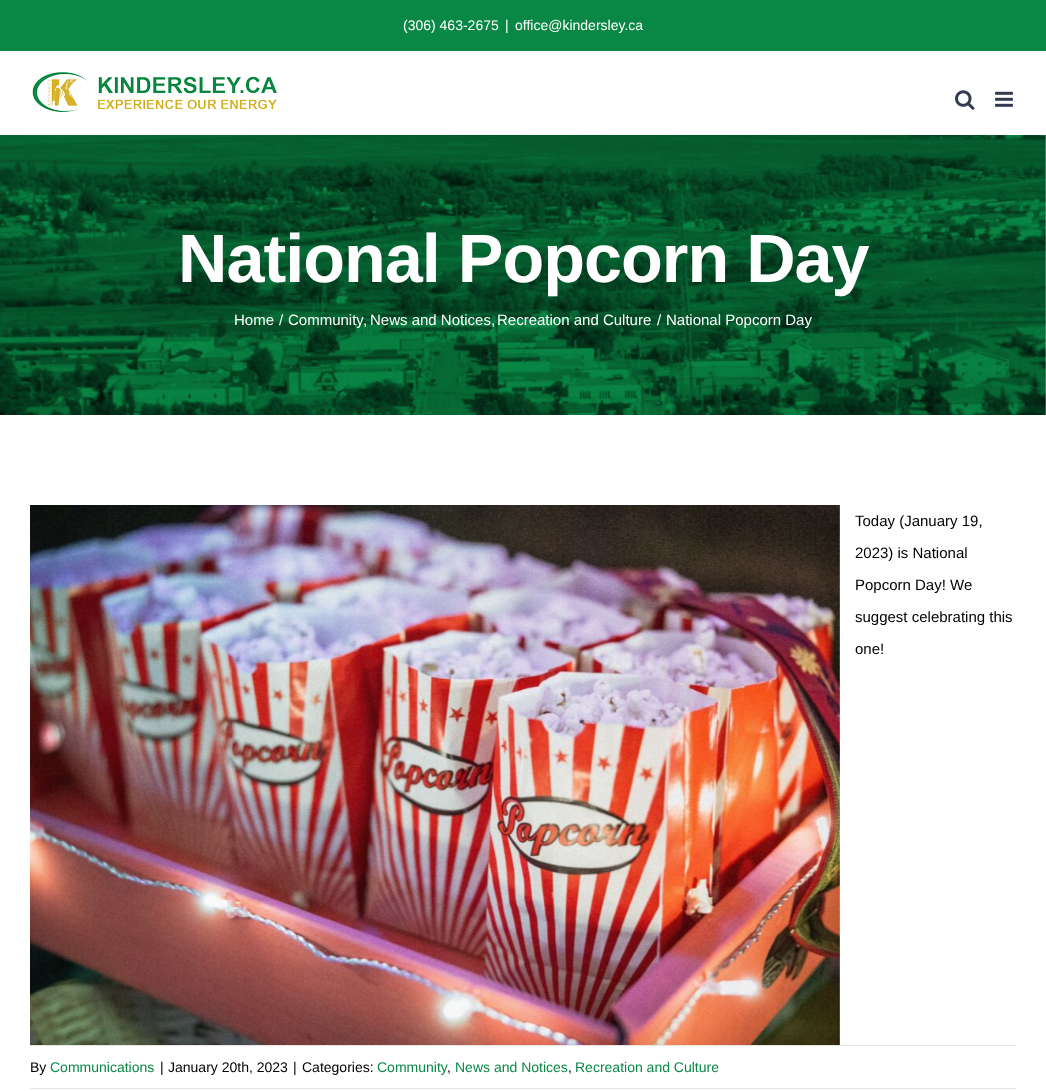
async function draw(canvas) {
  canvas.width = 1046
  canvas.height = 1091
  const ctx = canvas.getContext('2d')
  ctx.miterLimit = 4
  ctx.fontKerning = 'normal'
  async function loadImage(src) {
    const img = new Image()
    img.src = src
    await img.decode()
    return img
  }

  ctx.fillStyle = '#fff'
  ctx.fillRect(0, 0, 1046, 1091)
  ctx.fillStyle = '#098845'
  ctx.fillRect(0, 0, 1046, 51)
  ctx.font = '14px Liberation Sans'
  ctx.fillStyle = '#fff'
  ctx.fillText('(306) 463-2675', 403, 30)
  ctx.fillText('|', 505, 30)
  ctx.fillText('office@kindersley.ca', 515, 30)
  ctx.drawImage(await loadImage('image0.png'), 32, 72, 245, 40)
  ctx.drawImage(await loadImage('image1.png'), 955, 90, 20, 20)
  ctx.drawImage(await loadImage('image2.png'), 995, 91, 18, 16)
  ctx.drawImage(await loadImage('image3.png'), 0, 135, 1046, 280)
  ctx.letterSpacing = '-1px'
  ctx.font = 'bold 68.4px Liberation Sans'
  ctx.fillText('National Popcorn Day', 178, 282)
  ctx.letterSpacing = '0px'
  ctx.font = '15px Liberation Sans'
  ctx.fillText('Home', 234, 325)
  ctx.fillText('/', 279, 325)
  ctx.fillText('Community', 288, 325)
  ctx.fillText(',', 363, 325)
  ctx.fillText('News and Notices,', 370, 325)
  ctx.fillText('Recreation and Culture', 497, 325)
  ctx.fillText('/', 657, 325)
  ctx.fillText('National Popcorn Day', 666, 325)
  ctx.drawImage(await loadImage('image4.png'), 30, 505, 810, 540)
  ctx.fillStyle = '#000'
  ctx.fillText('Today (January 19,', 855, 526)
  ctx.fillText('2023) is National', 855, 558)
  ctx.fillText('Popcorn Day! We', 855, 590)
  ctx.fillText('suggest celebrating this', 855, 622)
  ctx.fillText('one!', 855, 654)
  ctx.fillStyle = '#e7e4e2'
  ctx.fillRect(30, 1045, 986, 1)
  ctx.fillRect(30, 1088, 986, 1)
  ctx.font = '14px Liberation Sans'
  ctx.fillStyle = '#000'
  ctx.fillText('By', 30, 1072)
  ctx.fillStyle = '#098845'
  ctx.fillText('Communications', 50, 1072)
  ctx.fillStyle = '#000'
  ctx.fillText('|', 160, 1072)
  ctx.fillText('January 20th, 2023', 168, 1072)
  ctx.fillText('|', 293, 1072)
  ctx.fillText('Categories:', 302, 1072)
  ctx.fillStyle = '#098845'
  ctx.fillText('Community', 377, 1072)
  ctx.fillStyle = '#000'
  ctx.fillText(',', 447, 1072)
  ctx.fillStyle = '#098845'
  ctx.fillText('News and Notices', 455, 1072)
  ctx.fillStyle = '#000'
  ctx.fillText(',', 568, 1072)
  ctx.fillStyle = '#098845'
  ctx.fillText('Recreation and Culture', 575, 1072)
}

draw(document.querySelector('canvas'))
